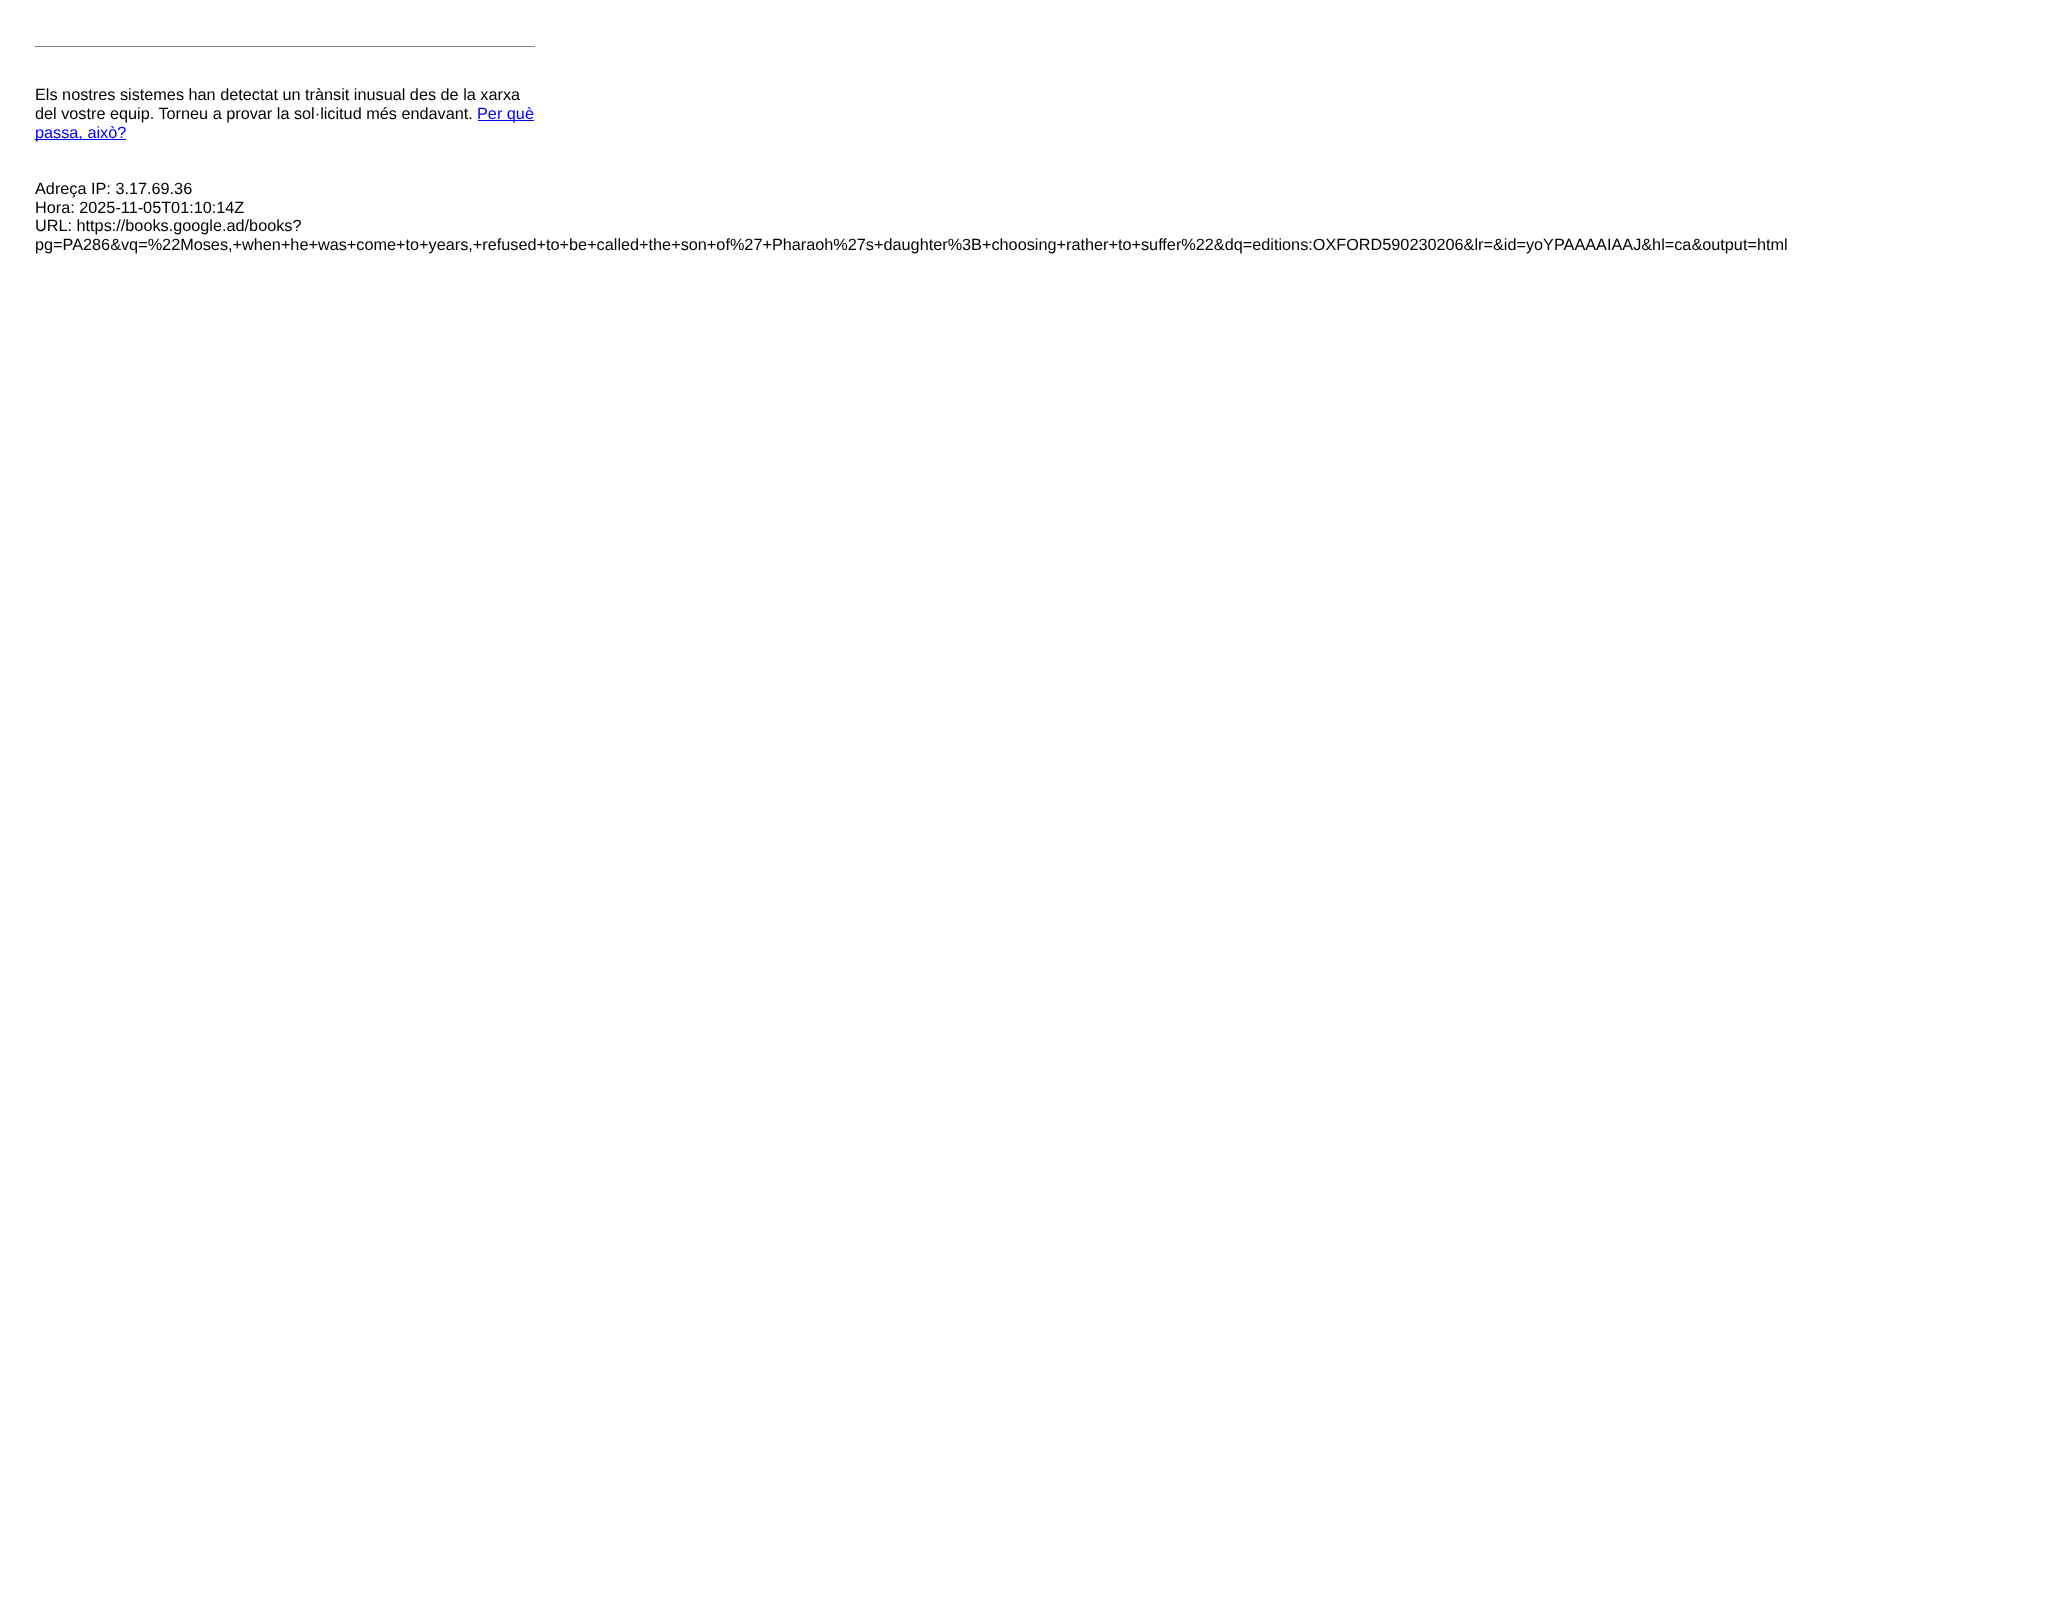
async function draw(canvas) {
  canvas.width = 2048
  canvas.height = 1624
  const ctx = canvas.getContext('2d')
  ctx.miterLimit = 4
  ctx.fontKerning = 'normal'

  ctx.fillStyle = '#fff'
  ctx.fillRect(0, 0, 2048, 1624)
  ctx.fillStyle = '#808080'
  ctx.fillRect(35, 46, 500, 1)
  ctx.font = '16.25px Liberation Sans'
  ctx.fillStyle = '#000'
  ctx.fillText('Els nostres sistemes han detectat un trànsit inusual des de la xarxa', 35, 100)
  ctx.fillText('del vostre equip. Torneu a provar la sol·licitud més endavant.', 35, 119)
  ctx.fillStyle = '#00e'
  ctx.fillRect(478, 120, 56, 1)
  ctx.fillText('Per què', 477, 119)
  ctx.fillRect(35, 139, 91, 1)
  ctx.fillText('passa, això?', 35, 138)
  ctx.fillStyle = '#000'
  ctx.fillText('Adreça IP: 3.17.69.36', 35, 194)
  ctx.fillText('Hora: 2025-11-05T01:10:14Z', 35, 213)
  ctx.fillText('URL: https://books.google.ad/books?', 35, 231)
  ctx.fillText('pg=PA286&vq=%22Moses,+when+he+was+come+to+years,+refused+to+be+called+the+son+of%27+Pharaoh%27s+daughter%3B+choosing+rather+to+suffer%22&dq=editions:OXFORD590230206&lr=&id=yoYPAAAAIAAJ&hl=ca&output=html', 35, 250)
}

draw(document.querySelector('canvas'))
